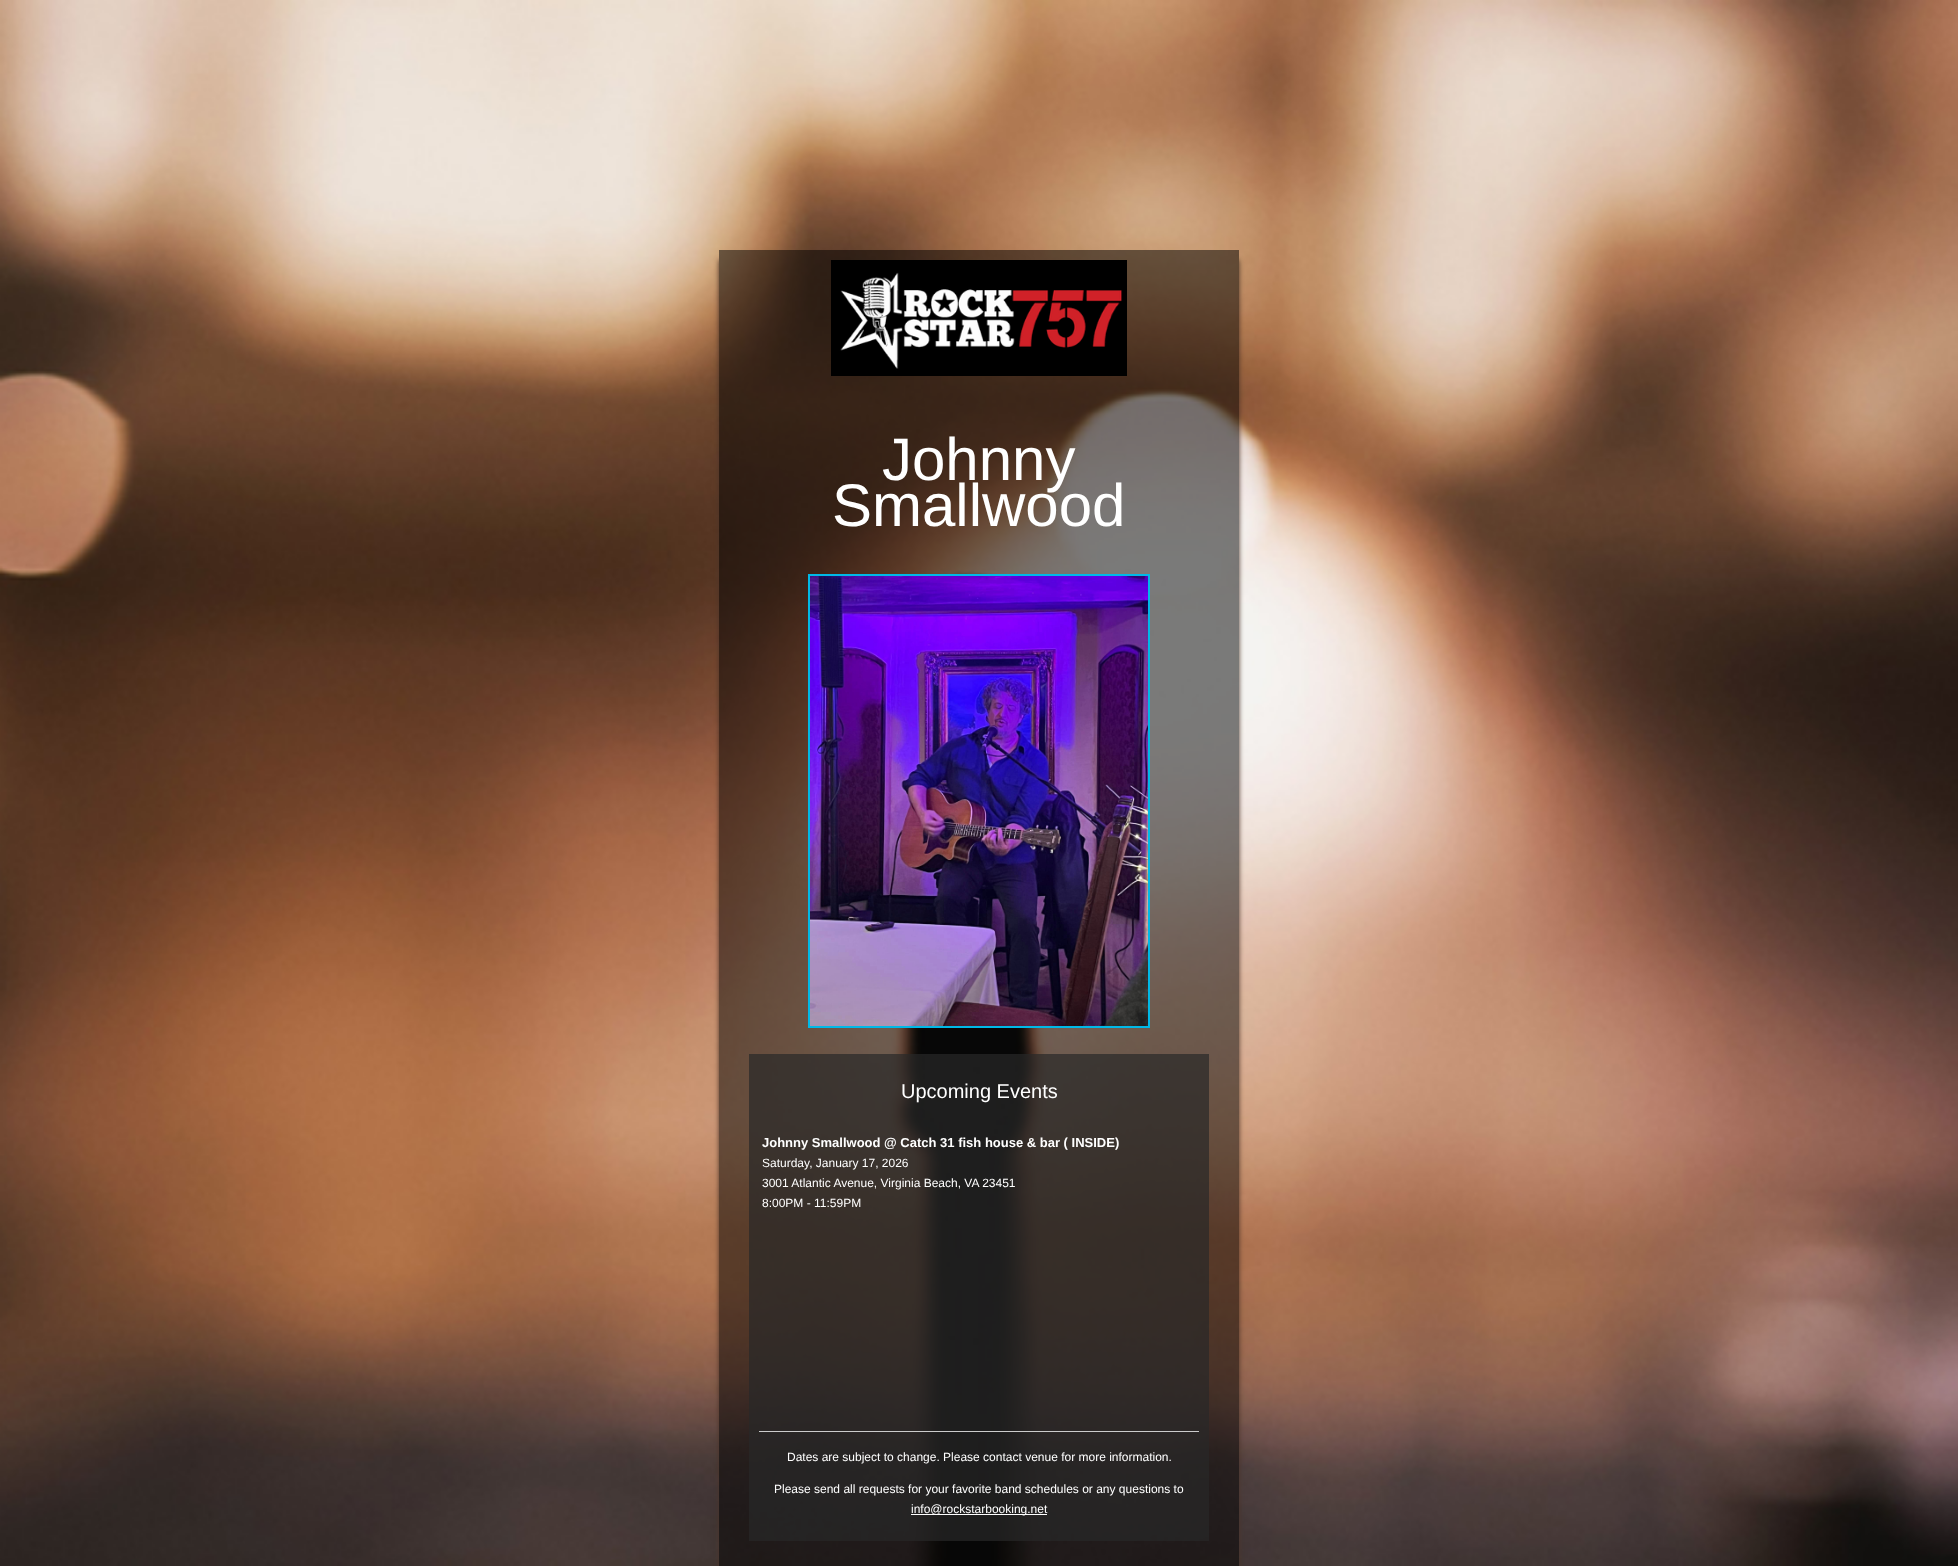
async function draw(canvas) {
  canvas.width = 1958
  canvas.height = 1566
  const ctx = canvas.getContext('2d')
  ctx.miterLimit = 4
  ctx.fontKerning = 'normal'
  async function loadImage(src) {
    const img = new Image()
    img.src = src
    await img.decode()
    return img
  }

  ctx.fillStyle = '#fff'
  ctx.fillRect(0, 0, 1958, 1566)
  ctx.drawImage(await loadImage('image0.png'), 0, 0, 1958, 1566)
  ctx.save()
  ctx.beginPath()
  ctx.moveTo(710, 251)
  ctx.lineTo(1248, 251)
  ctx.lineTo(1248, 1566)
  ctx.lineTo(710, 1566)
  ctx.closePath()
  ctx.moveTo(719, 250)
  ctx.lineTo(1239, 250)
  ctx.lineTo(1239, 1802)
  ctx.lineTo(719, 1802)
  ctx.closePath()
  ctx.clip('evenodd')
  ctx.fillStyle = '#4b3327'
  ctx.filter = 'blur(2.5px)'
  ctx.beginPath()
  ctx.rect(719, 260, 520, 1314)
  ctx.fill()
  ctx.filter = 'none'
  ctx.restore()
  ctx.fillStyle = '#00000080'
  ctx.fillRect(719, 250, 520, 1316)
  ctx.drawImage(await loadImage('image1.png'), 831, 260, 296, 116)
  ctx.font = '60px Liberation Sans'
  ctx.fillStyle = '#fff'
  ctx.fillText('Johnny', 882, 480)
  ctx.fillText('Smallwood', 832, 526)
  ctx.strokeStyle = '#00b9e7'
  ctx.lineWidth = 2
  ctx.strokeRect(809, 575, 340, 452)
  ctx.drawImage(await loadImage('image2.png'), 810, 576, 338, 450)
  ctx.fillStyle = '#282828b3'
  ctx.fillRect(749, 1054, 460, 487)
  ctx.font = '20px Liberation Sans'
  ctx.fillStyle = '#fff'
  ctx.fillText('Upcoming Events', 901, 1098)
  ctx.font = 'bold 13px Liberation Sans'
  ctx.fillText('Johnny Smallwood @ Catch 31 fish house & bar ( INSIDE)', 762, 1147)
  ctx.font = '12px Liberation Sans'
  ctx.fillText('Saturday, January 17, 2026', 762, 1167)
  ctx.fillText('3001 Atlantic Avenue, Virginia Beach, VA 23451', 762, 1187)
  ctx.fillText('8:00PM - 11:59PM', 762, 1207)
  ctx.fillStyle = '#ccc'
  ctx.fillRect(759, 1431, 440, 1)
  ctx.fillStyle = '#fff'
  ctx.fillText('Dates are subject to change. Please contact venue for more information.', 787, 1461)
  ctx.fillText('Please send all requests for your favorite band schedules or any questions to', 774, 1493)
  ctx.fillRect(911, 1514, 136, 1)
  ctx.fillText('info@rockstarbooking.net', 911, 1513)
}

draw(document.querySelector('canvas'))
